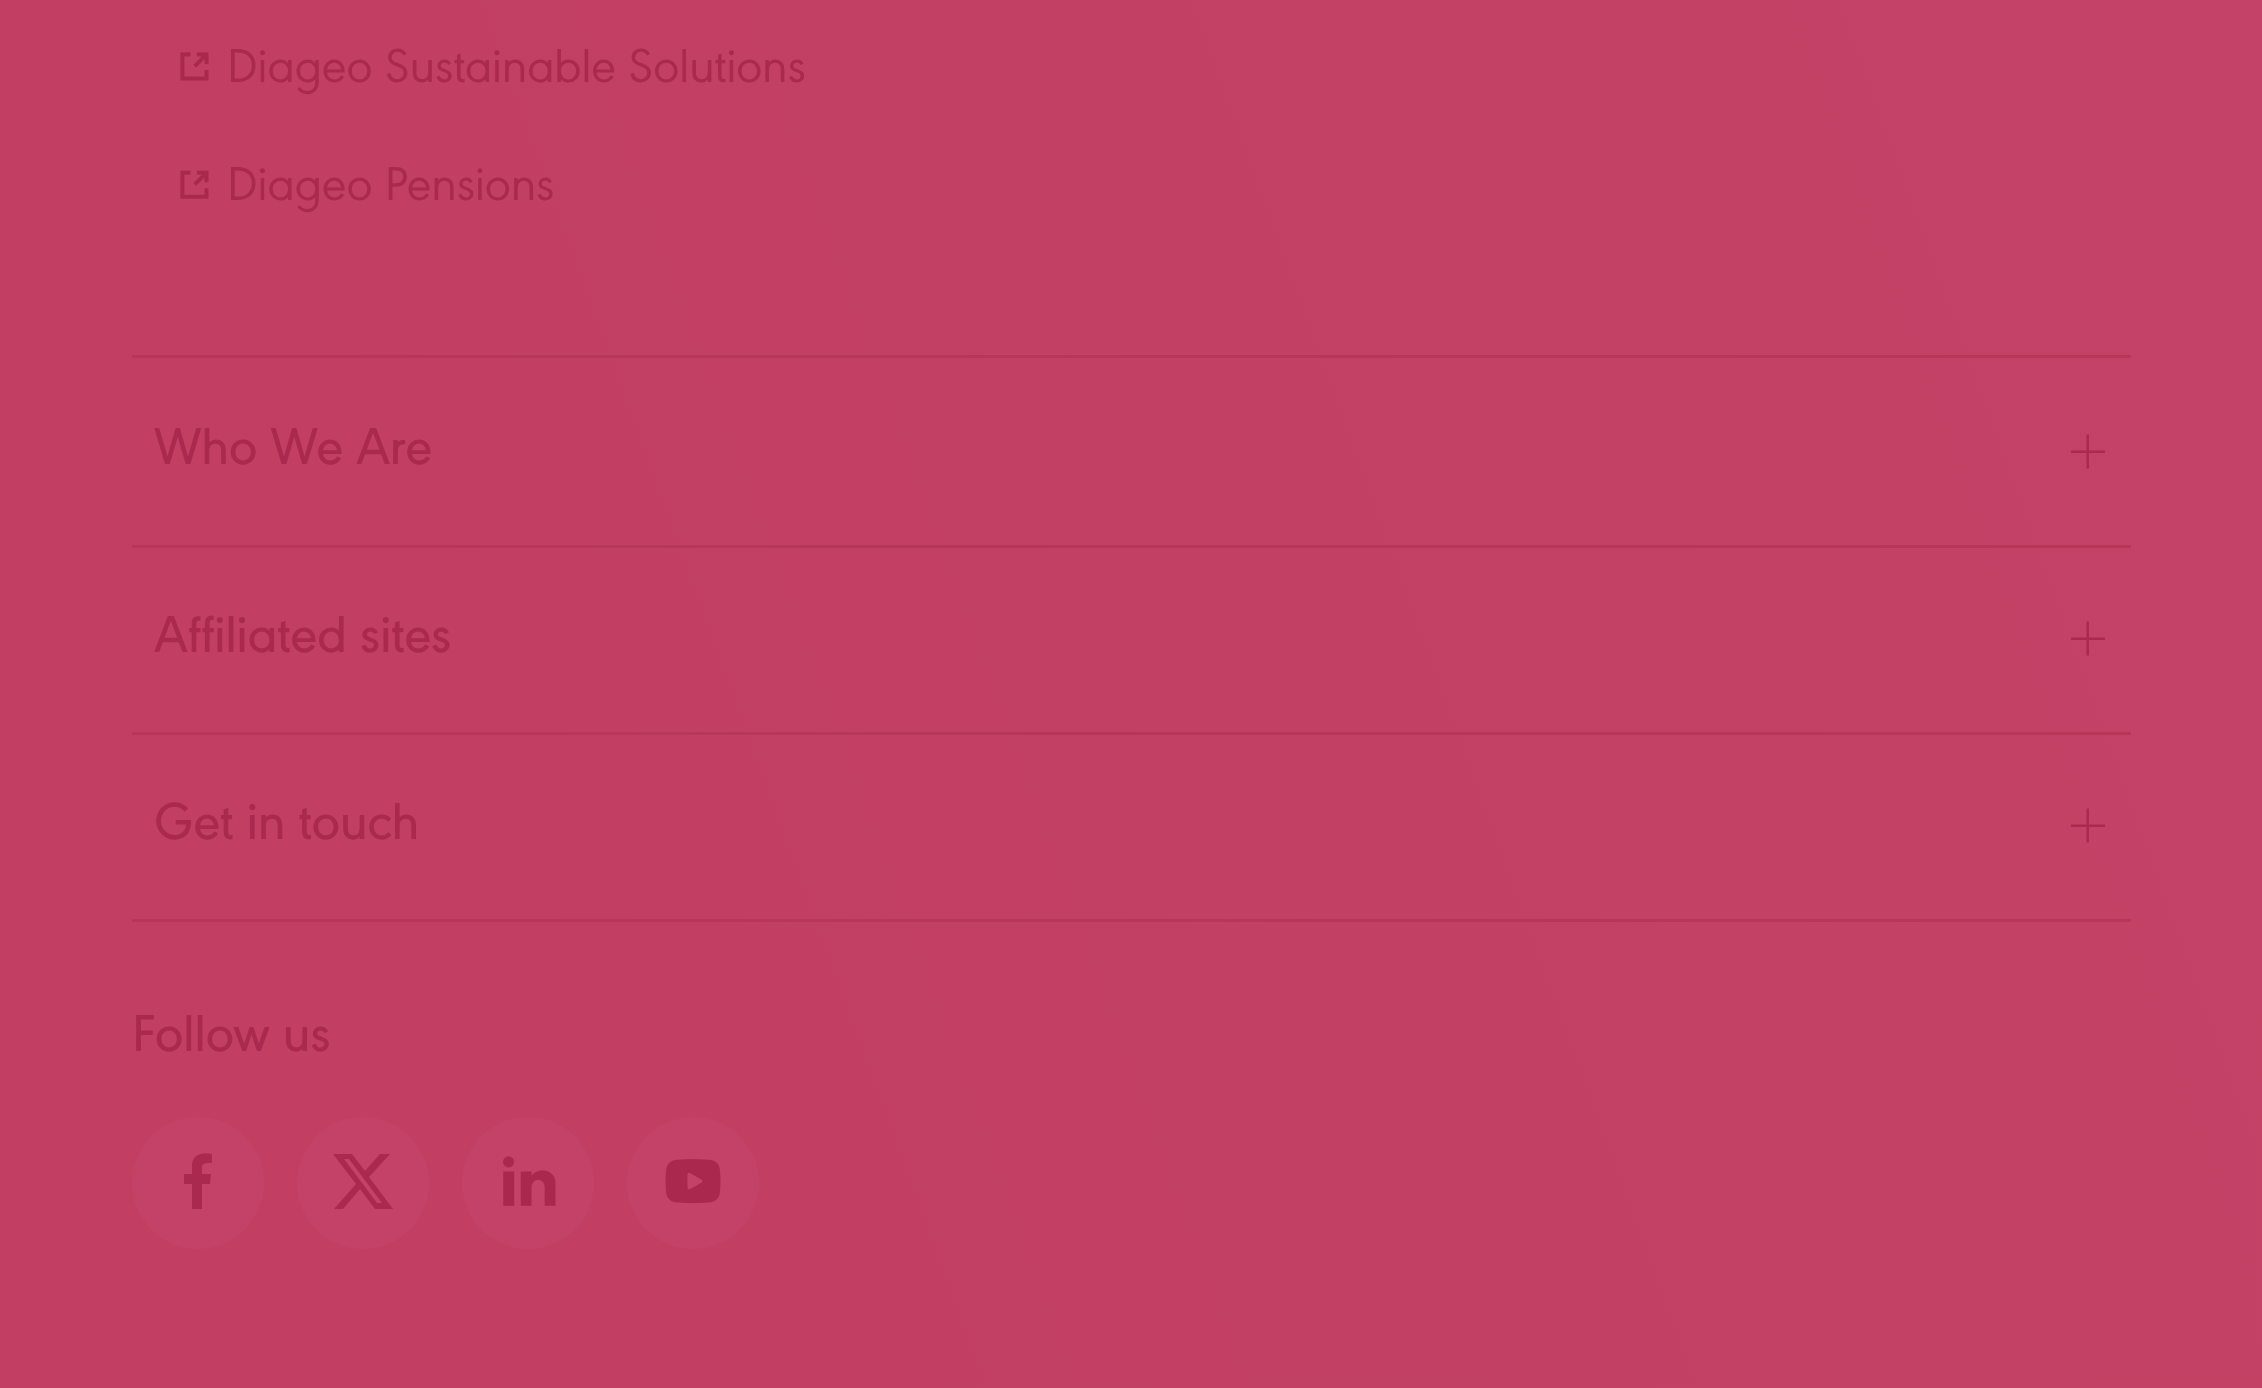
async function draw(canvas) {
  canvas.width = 2262
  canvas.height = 1388
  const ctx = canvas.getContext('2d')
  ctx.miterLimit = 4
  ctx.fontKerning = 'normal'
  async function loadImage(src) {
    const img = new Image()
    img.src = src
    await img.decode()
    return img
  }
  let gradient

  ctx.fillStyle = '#fff'
  ctx.fillRect(0, 0, 2262, 1388)
  gradient = ctx.createLinearGradient(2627, -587, -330, 489)
  gradient.addColorStop(0, '#c44268')
  gradient.addColorStop(0.44, '#c34165')
  gradient.addColorStop(0.78, '#c23f63')
  ctx.fillStyle = gradient
  ctx.fillRect(0, 0, 2262, 1388)
  ctx.drawImage(await loadImage('image0.png'), 180, 52, 29, 29)
  ctx.font = '49.5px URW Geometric'
  ctx.fillStyle = '#aa294e'
  ctx.fillText('Diageo Sustainable Solutions', 227, 82)
  ctx.drawImage(await loadImage('image1.png'), 180, 170, 29, 29)
  ctx.fillText('Diageo Pensions', 227, 200)
  ctx.fillStyle = '#b8365a'
  ctx.fillRect(132, 355, 1999, 3)
  ctx.font = '500 54px URW Geometric'
  ctx.fillStyle = '#aa294e'
  ctx.fillText('Who We Are', 154, 464)
  ctx.beginPath()
  ctx.moveTo(2071, 453)
  ctx.lineTo(2071, 450.5)
  ctx.lineTo(2105, 450.5)
  ctx.lineTo(2105, 453)
  ctx.closePath()
  ctx.moveTo(2086.5, 434.5)
  ctx.lineTo(2089, 434.5)
  ctx.lineTo(2089, 468.5)
  ctx.lineTo(2086.5, 468.5)
  ctx.closePath()
  ctx.fill()
  ctx.fillStyle = '#b8365a'
  ctx.fillRect(132, 545, 1999, 3)
  ctx.fillStyle = '#aa294e'
  ctx.fillText('Affiliated sites', 154, 652)
  ctx.beginPath()
  ctx.moveTo(2071, 640)
  ctx.lineTo(2071, 637.5)
  ctx.lineTo(2105, 637.5)
  ctx.lineTo(2105, 640)
  ctx.closePath()
  ctx.moveTo(2086.5, 621.5)
  ctx.lineTo(2089, 621.5)
  ctx.lineTo(2089, 655.5)
  ctx.lineTo(2086.5, 655.5)
  ctx.closePath()
  ctx.fill()
  ctx.fillStyle = '#b8365a'
  ctx.fillRect(132, 732, 1999, 3)
  ctx.fillRect(132, 919, 1999, 3)
  ctx.fillStyle = '#aa294e'
  ctx.fillText('Get in touch', 154, 839)
  ctx.beginPath()
  ctx.moveTo(2071, 827)
  ctx.lineTo(2071, 824.5)
  ctx.lineTo(2105, 824.5)
  ctx.lineTo(2105, 827)
  ctx.closePath()
  ctx.moveTo(2086.5, 808.5)
  ctx.lineTo(2089, 808.5)
  ctx.lineTo(2089, 842.5)
  ctx.lineTo(2086.5, 842.5)
  ctx.closePath()
  ctx.fill()
  ctx.fillText('Follow us', 132, 1051)
  ctx.fillStyle = '#c44268'
  ctx.beginPath()
  ctx.arc(198, 1183, 66, 0, 2 * Math.PI)
  ctx.fill()
  ctx.fillStyle = '#aa294e'
  ctx.beginPath()
  ctx.moveTo(192, 1209)
  ctx.lineTo(192, 1184)
  ctx.lineTo(184, 1184)
  ctx.lineTo(184, 1174)
  ctx.lineTo(192, 1174)
  ctx.lineTo(192, 1164)
  ctx.bezierCurveTo(194, 1153, 203, 1153, 212, 1154)
  ctx.lineTo(212, 1163)
  ctx.bezierCurveTo(201, 1163, 202, 1164, 202, 1174)
  ctx.lineTo(211, 1174)
  ctx.lineTo(210, 1184)
  ctx.lineTo(202, 1184)
  ctx.lineTo(202, 1209)
  ctx.closePath()
  ctx.fill()
  ctx.fillStyle = '#c44268'
  ctx.beginPath()
  ctx.arc(363, 1183, 66, 0, 2 * Math.PI)
  ctx.fill()
  ctx.fillStyle = '#aa294e'
  ctx.beginPath()
  ctx.moveTo(380, 1154)
  ctx.lineTo(390, 1154)
  ctx.lineTo(369, 1177)
  ctx.lineTo(393, 1209)
  ctx.lineTo(375, 1209)
  ctx.lineTo(360, 1189)
  ctx.lineTo(343, 1209)
  ctx.lineTo(334, 1209)
  ctx.lineTo(356, 1184)
  ctx.lineTo(333, 1154)
  ctx.lineTo(352, 1154)
  ctx.lineTo(365, 1171)
  ctx.closePath()
  ctx.moveTo(377, 1203)
  ctx.lineTo(382, 1203)
  ctx.lineTo(349, 1159)
  ctx.lineTo(344, 1159)
  ctx.closePath()
  ctx.fill()
  ctx.fillStyle = '#c44268'
  ctx.beginPath()
  ctx.arc(528, 1183, 66, 0, 2 * Math.PI)
  ctx.fill()
  ctx.drawImage(await loadImage('image2.png'), 503, 1156, 53, 50)
  ctx.beginPath()
  ctx.arc(693, 1183, 66, 0, 2 * Math.PI)
  ctx.fill()
  ctx.drawImage(await loadImage('image3.png'), 665, 1159, 56, 45)
}

draw(document.querySelector('canvas'))
